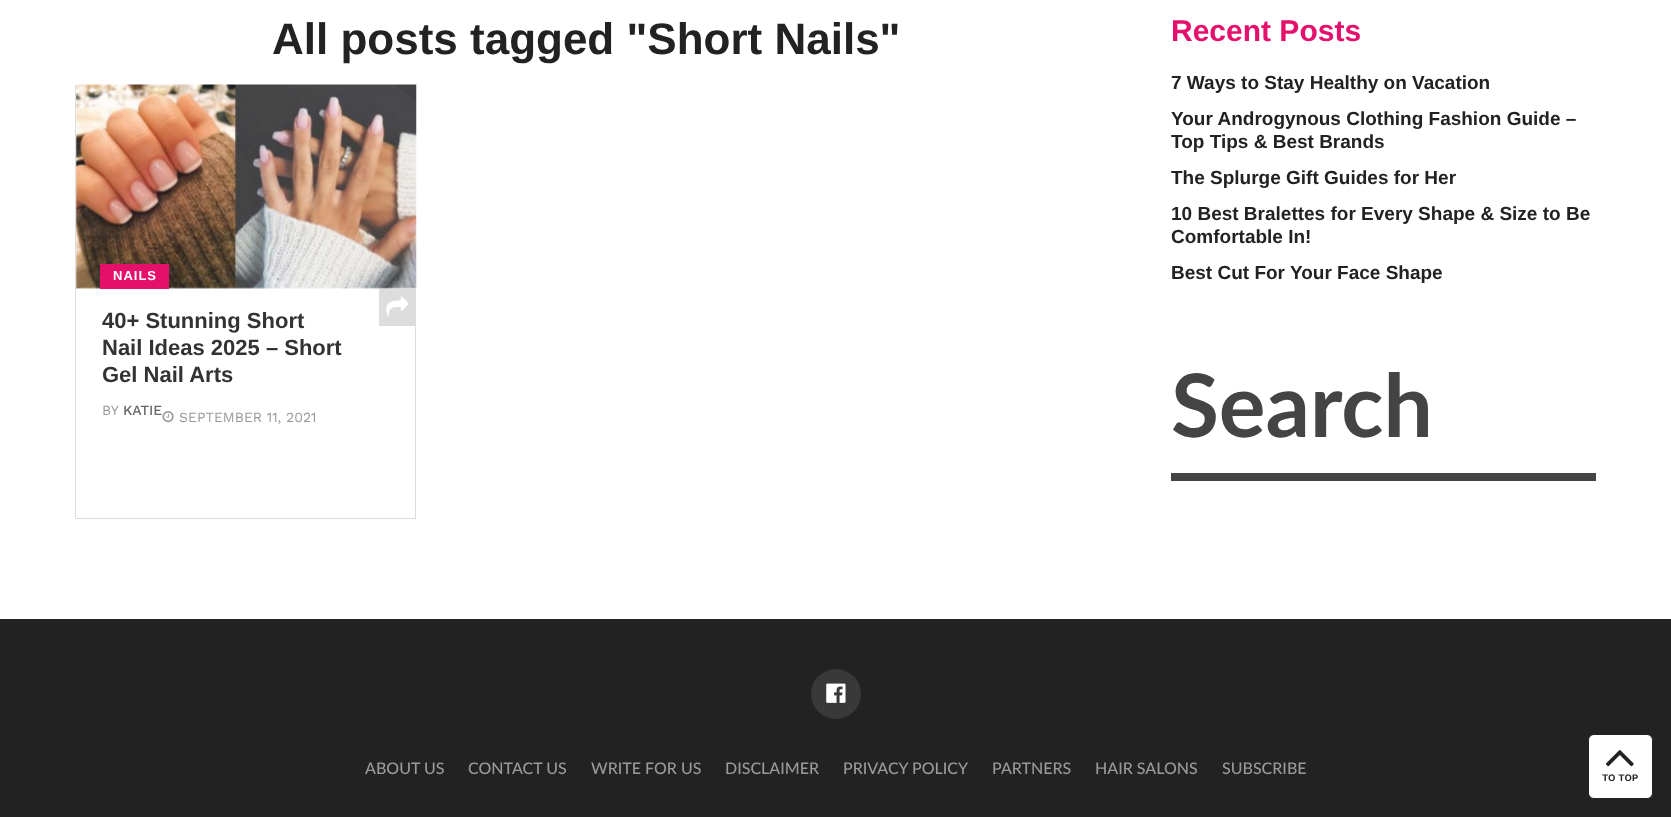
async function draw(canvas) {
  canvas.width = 1671
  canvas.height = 817
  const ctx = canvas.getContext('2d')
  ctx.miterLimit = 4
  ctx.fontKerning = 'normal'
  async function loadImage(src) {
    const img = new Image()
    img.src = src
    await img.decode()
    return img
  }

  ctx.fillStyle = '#fff'
  ctx.fillRect(0, 0, 1671, 817)
  ctx.font = 'bold 44px Liberation Sans'
  ctx.fillStyle = '#222'
  ctx.fillText('All posts tagged "Short Nails"', 272, 54)
  ctx.fillStyle = '#ddd'
  ctx.fillRect(75, 85, 1, 434)
  ctx.fillRect(76, 518, 340, 1)
  ctx.drawImage(await loadImage('image0.png'), 76, 84, 341, 205)
  ctx.fillRect(415, 326, 1, 192)
  ctx.fillStyle = '#e5106c'
  ctx.fillRect(100, 264, 69, 25)
  ctx.letterSpacing = '1px'
  ctx.font = 'bold 13px Liberation Sans'
  ctx.fillStyle = '#fff'
  ctx.fillText('NAILS', 113, 280)
  ctx.fillStyle = '#ddd'
  ctx.fillRect(379, 289, 37, 37)
  ctx.drawImage(await loadImage('image1.png'), 386, 296, 23, 21)
  ctx.letterSpacing = '0px'
  ctx.font = 'bold 22px Liberation Sans'
  ctx.fillStyle = '#333'
  ctx.fillText('40+ Stunning Short', 102, 328)
  ctx.fillText('Nail Ideas 2025 – Short', 102, 355)
  ctx.fillText('Gel Nail Arts', 102, 382)
  ctx.font = '14px Work Sans'
  ctx.fillStyle = '#999'
  ctx.fillText('BY', 102, 415)
  ctx.font = '500 14px Work Sans'
  ctx.fillStyle = '#666'
  ctx.fillText('KATIE', 123, 415)
  ctx.drawImage(await loadImage('image2.png'), 162, 411, 12, 12)
  ctx.font = '14px Work Sans'
  ctx.fillStyle = '#999'
  ctx.fillText('SEPTEMBER 11, 2021', 179, 422)
  ctx.font = 'bold 30px Liberation Sans'
  ctx.fillStyle = '#e5106c'
  ctx.fillText('Recent Posts', 1171, 41)
  ctx.font = 'bold 19px Liberation Sans'
  ctx.fillStyle = '#222'
  ctx.fillText('7 Ways to Stay Healthy on Vacation', 1171, 89)
  ctx.fillText('Your Androgynous Clothing Fashion Guide –', 1171, 125)
  ctx.fillText('Top Tips & Best Brands', 1171, 148)
  ctx.fillText('The Splurge Gift Guides for Her', 1171, 184)
  ctx.fillText('10 Best Bralettes for Every Shape & Size to Be', 1171, 220)
  ctx.fillText('Comfortable In!', 1171, 243)
  ctx.fillText('Best Cut For Your Face Shape', 1171, 279)
  ctx.fillStyle = '#444'
  ctx.fillRect(1171, 473, 425, 8)
  ctx.font = 'bold 87.5px Lato'
  ctx.fillText('Search', 1171, 437)
  ctx.fillStyle = '#222'
  ctx.fillRect(0, 619, 1671, 198)
  ctx.fillStyle = '#393939'
  ctx.beginPath()
  ctx.arc(836, 694, 25, 0, 2 * Math.PI)
  ctx.fill()
  ctx.drawImage(await loadImage('image3.png'), 826, 683, 20, 20)
  ctx.font = '500 16px Lato'
  ctx.fillStyle = '#999'
  ctx.fillText('ABOUT US', 365, 774)
  ctx.fillText('CONTACT US', 468, 774)
  ctx.fillText('WRITE FOR US', 591, 774)
  ctx.fillText('DISCLAIMER', 725, 774)
  ctx.fillText('PRIVACY POLICY', 843, 774)
  ctx.fillText('PARTNERS', 992, 774)
  ctx.fillText('HAIR SALONS', 1095, 774)
  ctx.fillText('SUBSCRIBE', 1222, 774)
  ctx.fillStyle = '#fff'
  ctx.beginPath()
  ctx.roundRect(1588.5, 734.5, 64, 64, 5.5)
  ctx.fill()
  ctx.strokeStyle = '#222'
  ctx.stroke()
  ctx.drawImage(await loadImage('image4.png'), 1606, 750, 28, 17)
  ctx.font = '600 10px Work Sans'
  ctx.fillStyle = '#222'
  ctx.fillText('TO TOP', 1602, 781)
}

draw(document.querySelector('canvas'))
